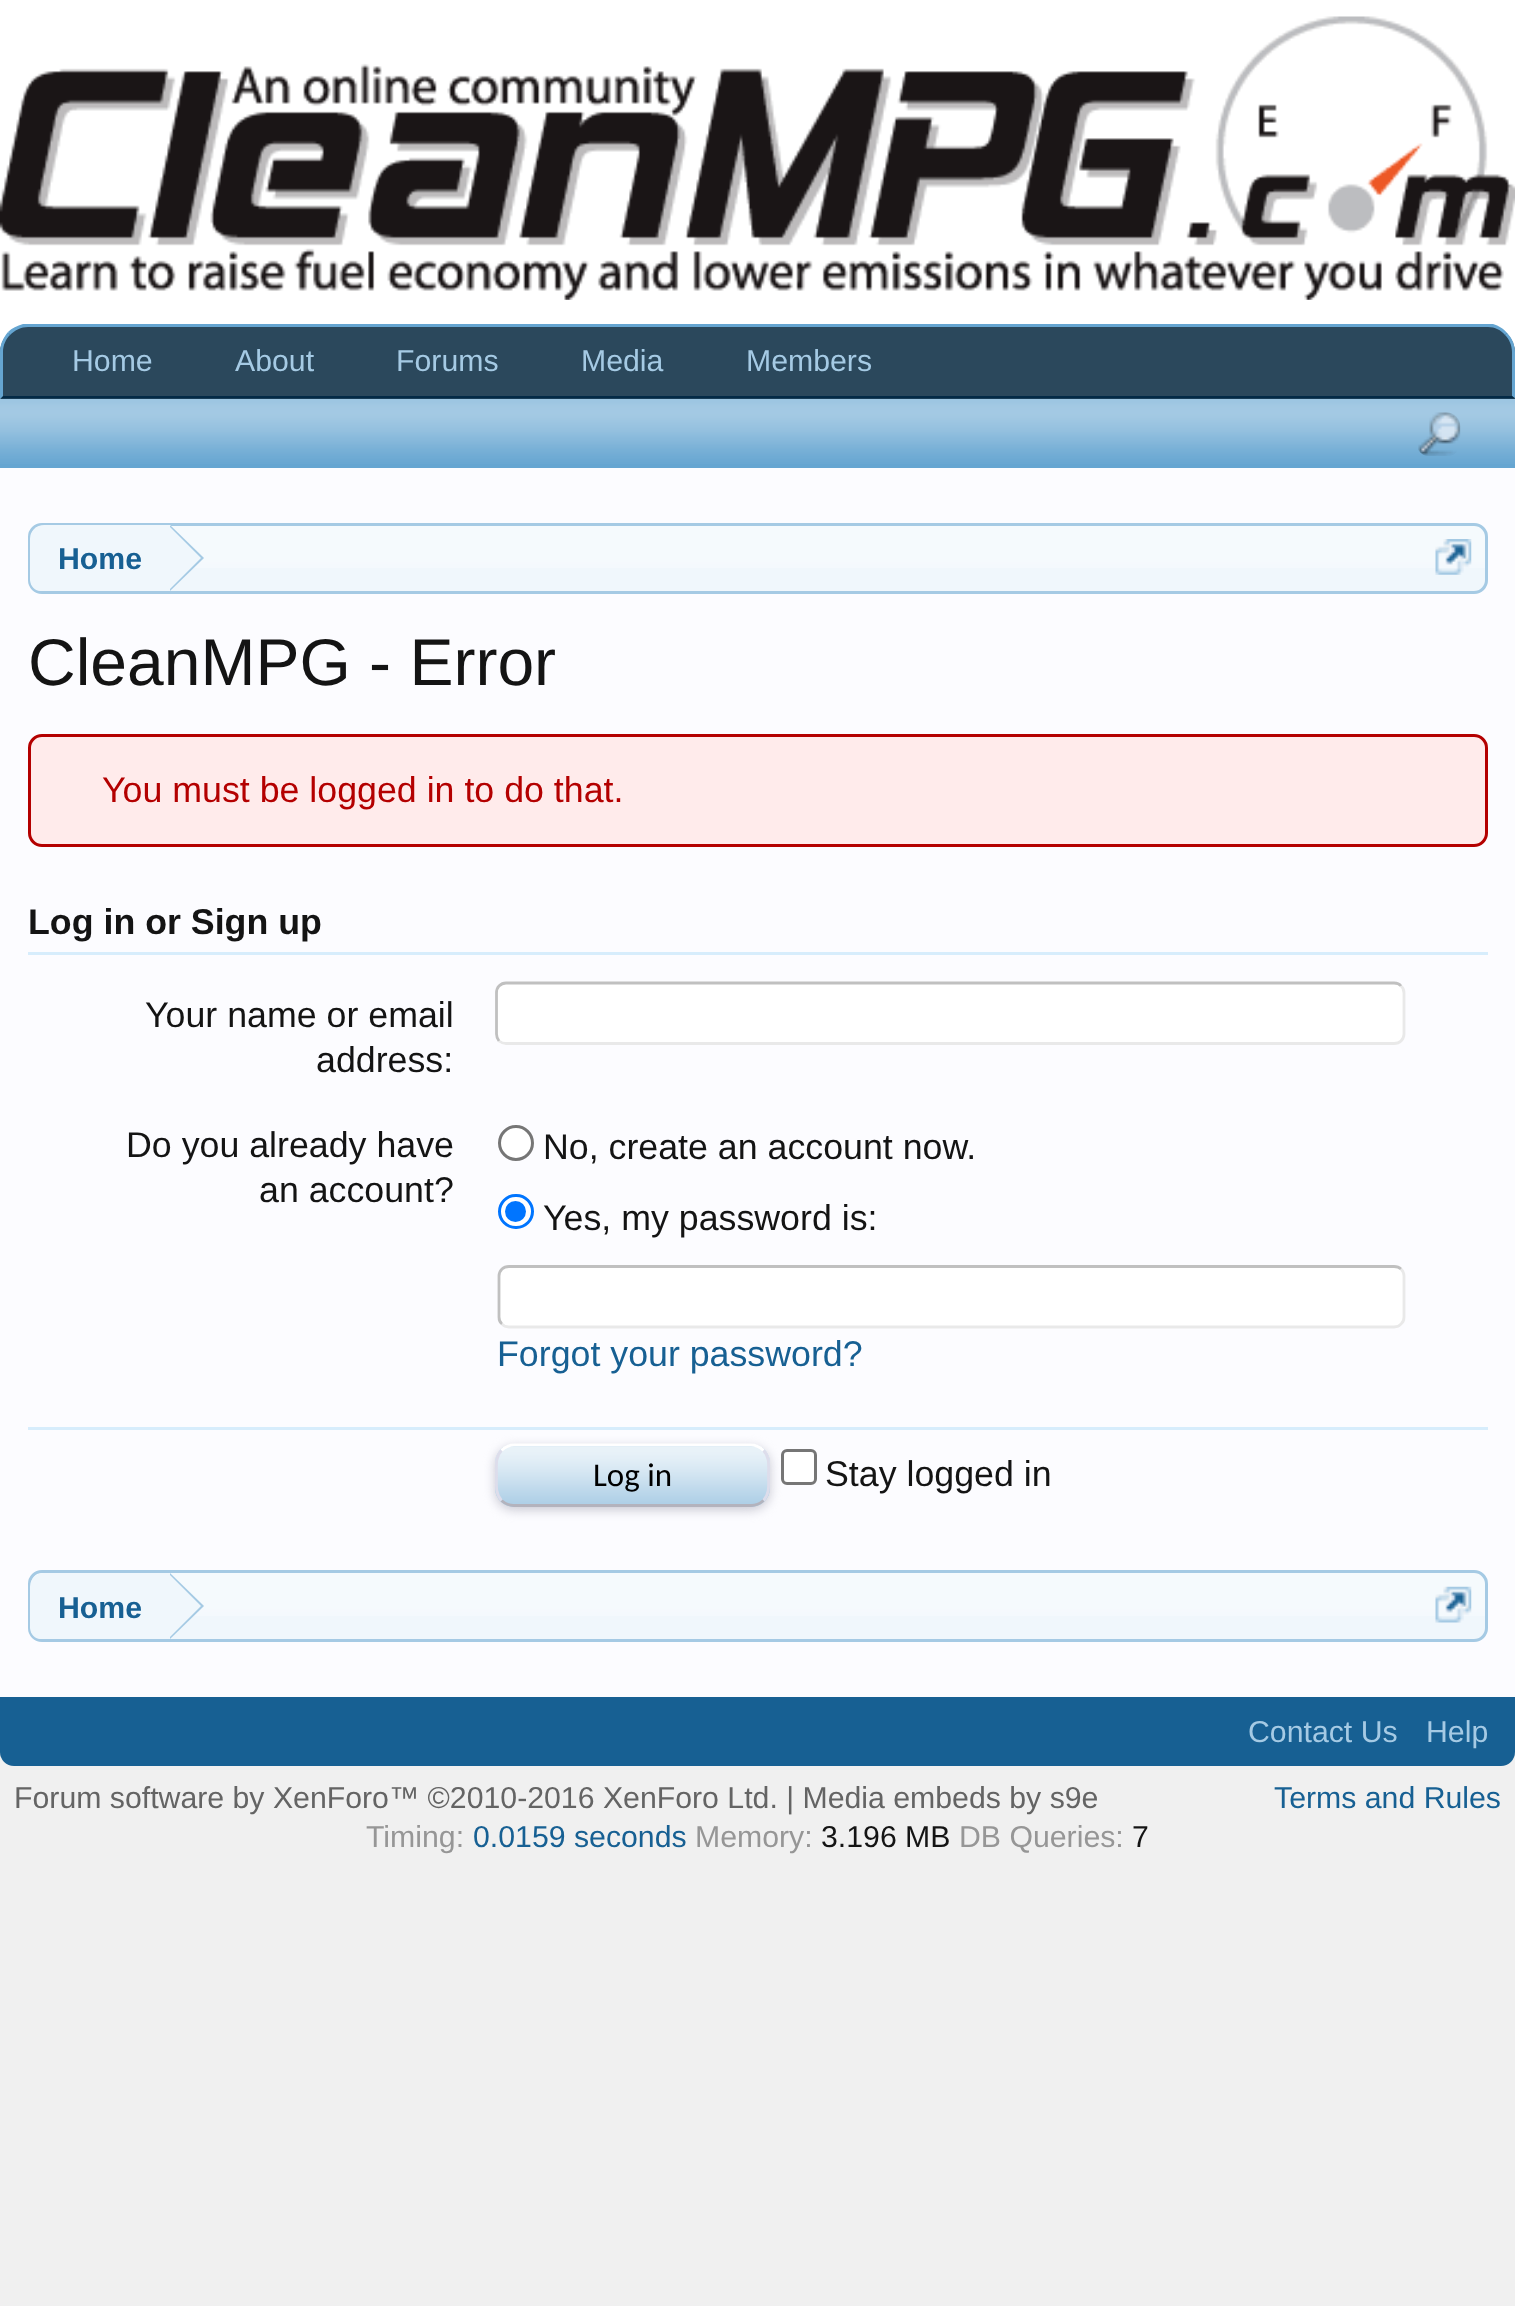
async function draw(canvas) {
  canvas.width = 1515
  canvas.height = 2306
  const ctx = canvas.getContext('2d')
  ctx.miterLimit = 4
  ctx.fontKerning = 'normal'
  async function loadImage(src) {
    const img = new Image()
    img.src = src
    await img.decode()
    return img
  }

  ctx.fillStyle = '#f0f0f0'
  ctx.fillRect(0, 0, 1515, 2306)
  ctx.fillStyle = '#fff'
  ctx.fillRect(0, 0, 1515, 352)
  ctx.drawImage(await loadImage('image0.png'), 0, 16, 1515, 284)
  ctx.fillStyle = '#2b485c'
  ctx.beginPath()
  ctx.roundRect(0, 325, 1515, 74, [28, 28, 0, 0])
  ctx.fill()
  ctx.fillStyle = '#65a5d1'
  ctx.beginPath()
  ctx.moveTo(28, 327)
  ctx.bezierCurveTo(21, 327, 15, 330, 10, 335)
  ctx.lineTo(8, 332)
  ctx.bezierCurveTo(12, 328, 17, 326, 23, 324)
  ctx.lineTo(1493, 324)
  ctx.bezierCurveTo(1499, 326, 1503, 328, 1507, 333)
  ctx.lineTo(1505, 335)
  ctx.bezierCurveTo(1501, 330, 1495, 327, 1488, 327)
  ctx.closePath()
  ctx.fill()
  ctx.beginPath()
  ctx.moveTo(1507, 333)
  ctx.bezierCurveTo(1512, 338, 1515, 345, 1515, 352)
  ctx.lineTo(1515, 398)
  ctx.lineTo(1512, 396)
  ctx.lineTo(1512, 352)
  ctx.bezierCurveTo(1512, 345, 1509, 339, 1505, 335)
  ctx.closePath()
  ctx.fill()
  ctx.fillStyle = '#032a46'
  ctx.beginPath()
  ctx.moveTo(1515, 399)
  ctx.lineTo(0, 399)
  ctx.lineTo(3, 396)
  ctx.lineTo(1512, 396)
  ctx.closePath()
  ctx.fill()
  ctx.fillStyle = '#65a5d1'
  ctx.beginPath()
  ctx.moveTo(0, 399)
  ctx.lineTo(3, 396)
  ctx.lineTo(3, 352)
  ctx.bezierCurveTo(3, 345, 6, 339, 10, 335)
  ctx.lineTo(8, 332)
  ctx.bezierCurveTo(3, 338, 0, 345, 0, 352)
  ctx.closePath()
  ctx.fill()
  ctx.font = '30.25px Liberation Sans'
  ctx.fillStyle = '#a5cae4'
  ctx.fillText('Home', 72, 371)
  ctx.fillText('About', 235, 371)
  ctx.fillText('Forums', 396, 371)
  ctx.fillText('Media', 581, 371)
  ctx.fillText('Members', 746, 371)
  ctx.fillStyle = '#65a5d1'
  ctx.fillRect(0, 399, 1515, 69)
  ctx.drawImage(await loadImage('image1.png'), 0, 398, 1515, 66)
  ctx.drawImage(await loadImage('image2.png'), 1418, 412, 43, 44)
  ctx.fillStyle = '#fcfcff'
  ctx.fillRect(0, 468, 1515, 1229)
  ctx.fillStyle = '#f0f7fc'
  ctx.beginPath()
  ctx.roundRect(28, 523, 1460, 71, 14)
  ctx.fill()
  ctx.drawImage(await loadImage('image3.png'), 28, 526, 1459, 42)
  ctx.beginPath()
  ctx.roundRect(29.5, 524.5, 1457, 68, 12.5)
  ctx.strokeStyle = '#a5cae4'
  ctx.lineWidth = 3
  ctx.stroke()
  ctx.save()
  ctx.beginPath()
  ctx.roundRect(30, 525, 1455, 66, 11)
  ctx.clip()
  ctx.beginPath()
  ctx.roundRect(30, 525, 141, 69, [14, 0, 0, 14])
  ctx.fill()
  ctx.restore()
  ctx.font = 'bold 30.25px Liberation Sans'
  ctx.fillStyle = '#176093'
  ctx.fillText('Home', 58, 569)
  ctx.fillStyle = '#a5cae4'
  ctx.beginPath()
  ctx.moveTo(170, 591)
  ctx.lineTo(170, 525)
  ctx.lineTo(204, 558)
  ctx.closePath()
  ctx.fill()
  ctx.fillStyle = '#f0f7fc'
  ctx.beginPath()
  ctx.moveTo(168, 591)
  ctx.lineTo(168, 525)
  ctx.lineTo(201, 558)
  ctx.closePath()
  ctx.fill()
  ctx.drawImage(await loadImage('image4.png'), 1435, 539, 37, 36)
  ctx.font = '66px Liberation Sans'
  ctx.fillStyle = '#141414'
  ctx.fillText('CleanMPG - Error', 28, 685)
  ctx.fillStyle = '#ffebeb'
  ctx.beginPath()
  ctx.roundRect(29.5, 735.5, 1457, 110, 12.5)
  ctx.fill()
  ctx.strokeStyle = '#b40000'
  ctx.stroke()
  ctx.font = '35.75px Liberation Sans'
  ctx.fillStyle = '#b40000'
  ctx.fillText('You must be logged in to do that.', 102, 802)
  ctx.fillStyle = '#d7edfc'
  ctx.fillRect(28, 952, 1460, 3)
  ctx.font = 'bold 35.75px Liberation Sans'
  ctx.fillStyle = '#141414'
  ctx.fillText('Log in or Sign up', 28, 934)
  ctx.font = '35.75px Liberation Sans'
  ctx.fillText('Your name or email', 145, 1027)
  ctx.fillText('address:', 316, 1072)
  ctx.fillStyle = '#fff'
  ctx.beginPath()
  ctx.roundRect(495, 982, 910, 63, 11)
  ctx.fill()
  ctx.beginPath()
  ctx.moveTo(1401, 986)
  ctx.bezierCurveTo(1403, 987.5, 1404, 990, 1404, 993)
  ctx.lineTo(1404, 1034)
  ctx.bezierCurveTo(1404, 1036.5, 1403, 1039, 1401, 1041)
  ctx.bezierCurveTo(1399.5, 1042.5, 1397, 1043.5, 1394, 1043.5)
  ctx.lineTo(506, 1043.5)
  ctx.bezierCurveTo(503.5, 1043.5, 501, 1042.5, 499, 1041)
  ctx.strokeStyle = '#e9e9e9'
  ctx.lineWidth = 2.8
  ctx.stroke()
  ctx.beginPath()
  ctx.moveTo(499, 1041)
  ctx.bezierCurveTo(497.5, 1039, 496.5, 1036.5, 496.5, 1034)
  ctx.lineTo(496.5, 993)
  ctx.bezierCurveTo(496.5, 990, 497.5, 987.5, 499, 986)
  ctx.bezierCurveTo(501, 984, 503.5, 983, 506, 983)
  ctx.lineTo(1394, 983)
  ctx.bezierCurveTo(1397, 983, 1399.5, 984, 1401, 986)
  ctx.strokeStyle = '#c0c0c0'
  ctx.stroke()
  ctx.fillStyle = '#141414'
  ctx.fillText('Do you already have', 126, 1157)
  ctx.fillText('an account?', 259, 1202)
  ctx.fillStyle = '#fff'
  ctx.beginPath()
  ctx.arc(516, 1143, 16.5, 0, 2 * Math.PI)
  ctx.fill()
  ctx.strokeStyle = '#767676'
  ctx.lineWidth = 3
  ctx.stroke()
  ctx.fillStyle = '#141414'
  ctx.fillText('No, create an account now.', 543, 1159)
  ctx.fillStyle = '#fff'
  ctx.beginPath()
  ctx.roundRect(499.5, 1195.5, 33, 32, 16)
  ctx.fill()
  ctx.strokeStyle = '#0075ff'
  ctx.stroke()
  ctx.fillStyle = '#0075ff'
  ctx.beginPath()
  ctx.arc(515.5, 1211.5, 10.5, 0, 2 * Math.PI)
  ctx.fill()
  ctx.fillStyle = '#141414'
  ctx.fillText('Yes, my password is:', 543, 1230)
  ctx.fillStyle = '#fff'
  ctx.beginPath()
  ctx.roundRect(498, 1265, 907, 63, 11)
  ctx.fill()
  ctx.beginPath()
  ctx.moveTo(1401, 1269)
  ctx.bezierCurveTo(1403, 1271, 1404, 1273.5, 1404, 1276)
  ctx.lineTo(1404, 1317)
  ctx.bezierCurveTo(1404, 1320, 1403, 1322.5, 1401, 1324)
  ctx.bezierCurveTo(1399.5, 1326, 1397, 1327, 1394, 1327)
  ctx.lineTo(509, 1327)
  ctx.bezierCurveTo(506, 1327, 503.5, 1326, 502, 1324)
  ctx.strokeStyle = '#e9e9e9'
  ctx.lineWidth = 2.8
  ctx.stroke()
  ctx.beginPath()
  ctx.moveTo(502, 1324)
  ctx.bezierCurveTo(500, 1322.5, 499, 1320, 499, 1317)
  ctx.lineTo(499, 1276)
  ctx.bezierCurveTo(499, 1273.5, 500, 1271, 502, 1269)
  ctx.bezierCurveTo(503.5, 1267.5, 506, 1266.5, 509, 1266.5)
  ctx.lineTo(1394, 1266.5)
  ctx.bezierCurveTo(1397, 1266.5, 1399.5, 1267.5, 1401, 1269)
  ctx.strokeStyle = '#c0c0c0'
  ctx.stroke()
  ctx.fillStyle = '#176093'
  ctx.fillText('Forgot your password?', 497, 1366)
  ctx.fillStyle = '#d7edfc'
  ctx.fillRect(28, 1427, 1460, 3)
  ctx.fillStyle = '#fff'
  ctx.beginPath()
  ctx.roundRect(782.5, 1450.5, 33, 33, 4.5)
  ctx.fill()
  ctx.strokeStyle = '#767676'
  ctx.lineWidth = 3
  ctx.stroke()
  ctx.fillStyle = '#c8c8d2'
  ctx.filter = 'blur(5.5px)'
  ctx.beginPath()
  ctx.roundRect(495, 1447, 275, 63, 19)
  ctx.fill()
  ctx.filter = 'none'
  ctx.fillStyle = '#a5cae4'
  ctx.beginPath()
  ctx.roundRect(495, 1444, 275, 63, 19)
  ctx.fill()
  ctx.drawImage(await loadImage('image5.png'), 495, 1446, 275, 61)
  ctx.beginPath()
  ctx.moveTo(501.5, 1450.5)
  ctx.bezierCurveTo(505, 1447, 509.5, 1445, 514, 1445)
  ctx.lineTo(751, 1445)
  ctx.bezierCurveTo(755.5, 1445, 760, 1447, 763.5, 1450.5)
  ctx.strokeStyle = '#fff'
  ctx.lineWidth = 2.8
  ctx.stroke()
  ctx.beginPath()
  ctx.moveTo(763.5, 1450.5)
  ctx.bezierCurveTo(770, 1457, 768.5, 1466.5, 768.5, 1475.5)
  ctx.bezierCurveTo(768.5, 1484, 770, 1493.5, 763.5, 1500.5)
  ctx.strokeStyle = '#ddddeb'
  ctx.stroke()
  ctx.beginPath()
  ctx.moveTo(763.5, 1500.5)
  ctx.bezierCurveTo(760, 1503.5, 755.5, 1505.5, 751, 1505.5)
  ctx.lineTo(514, 1505.5)
  ctx.bezierCurveTo(509.5, 1505.5, 505, 1503.5, 501.5, 1500.5)
  ctx.strokeStyle = '#b3b3bd'
  ctx.stroke()
  ctx.beginPath()
  ctx.moveTo(501.5, 1500.5)
  ctx.bezierCurveTo(495, 1493.5, 496.5, 1484, 496.5, 1475.5)
  ctx.bezierCurveTo(496.5, 1466.5, 495, 1457, 501.5, 1450.5)
  ctx.strokeStyle = '#ddddeb'
  ctx.stroke()
  ctx.font = '33px Carlito'
  ctx.fillStyle = '#000'
  ctx.fillText('Log in', 593, 1486)
  ctx.font = '35.75px Liberation Sans'
  ctx.fillStyle = '#141414'
  ctx.fillText('Stay logged in', 825, 1486)
  ctx.fillStyle = '#f0f7fc'
  ctx.beginPath()
  ctx.roundRect(28, 1570, 1460, 72, 14)
  ctx.fill()
  ctx.drawImage(await loadImage('image6.png'), 28, 1573, 1459, 43)
  ctx.beginPath()
  ctx.roundRect(29.5, 1571.5, 1457, 69, 12.5)
  ctx.strokeStyle = '#a5cae4'
  ctx.lineWidth = 3
  ctx.stroke()
  ctx.save()
  ctx.beginPath()
  ctx.roundRect(30, 1573, 1455, 66, 11)
  ctx.clip()
  ctx.beginPath()
  ctx.roundRect(30, 1573, 141, 69, [14, 0, 0, 14])
  ctx.fill()
  ctx.restore()
  ctx.font = 'bold 30.25px Liberation Sans'
  ctx.fillStyle = '#176093'
  ctx.fillText('Home', 58, 1618)
  ctx.fillStyle = '#a5cae4'
  ctx.beginPath()
  ctx.moveTo(170, 1639)
  ctx.lineTo(170, 1573)
  ctx.lineTo(204, 1606)
  ctx.closePath()
  ctx.fill()
  ctx.fillStyle = '#f0f7fc'
  ctx.beginPath()
  ctx.moveTo(168, 1639)
  ctx.lineTo(168, 1573)
  ctx.lineTo(201, 1606)
  ctx.closePath()
  ctx.fill()
  ctx.drawImage(await loadImage('image7.png'), 1435, 1586, 37, 37)
  ctx.fillStyle = '#176093'
  ctx.beginPath()
  ctx.roundRect(0, 1697, 1515, 69, [0, 0, 14, 14])
  ctx.fill()
  ctx.font = '30.25px Liberation Sans'
  ctx.fillStyle = '#a5cae4'
  ctx.fillText('Contact Us', 1248, 1742)
  ctx.fillText('Help', 1426, 1742)
  ctx.fillStyle = '#646464'
  ctx.fillText('Forum software by XenForo™ ©2010-2016 XenForo Ltd. | Media embeds by s9e', 14, 1808)
  ctx.fillStyle = '#176093'
  ctx.fillText('Terms and Rules', 1274, 1808)
  ctx.fillStyle = '#969696'
  ctx.fillText('Timing:', 366, 1847)
  ctx.fillStyle = '#176093'
  ctx.fillText('0.0159 seconds', 473, 1847)
  ctx.fillStyle = '#969696'
  ctx.fillText('Memory:', 695, 1847)
  ctx.fillStyle = '#141414'
  ctx.fillText('3.196 MB', 821, 1847)
  ctx.fillStyle = '#969696'
  ctx.fillText('DB Queries:', 959, 1847)
  ctx.fillStyle = '#141414'
  ctx.fillText('7', 1132, 1847)
}

draw(document.querySelector('canvas'))
